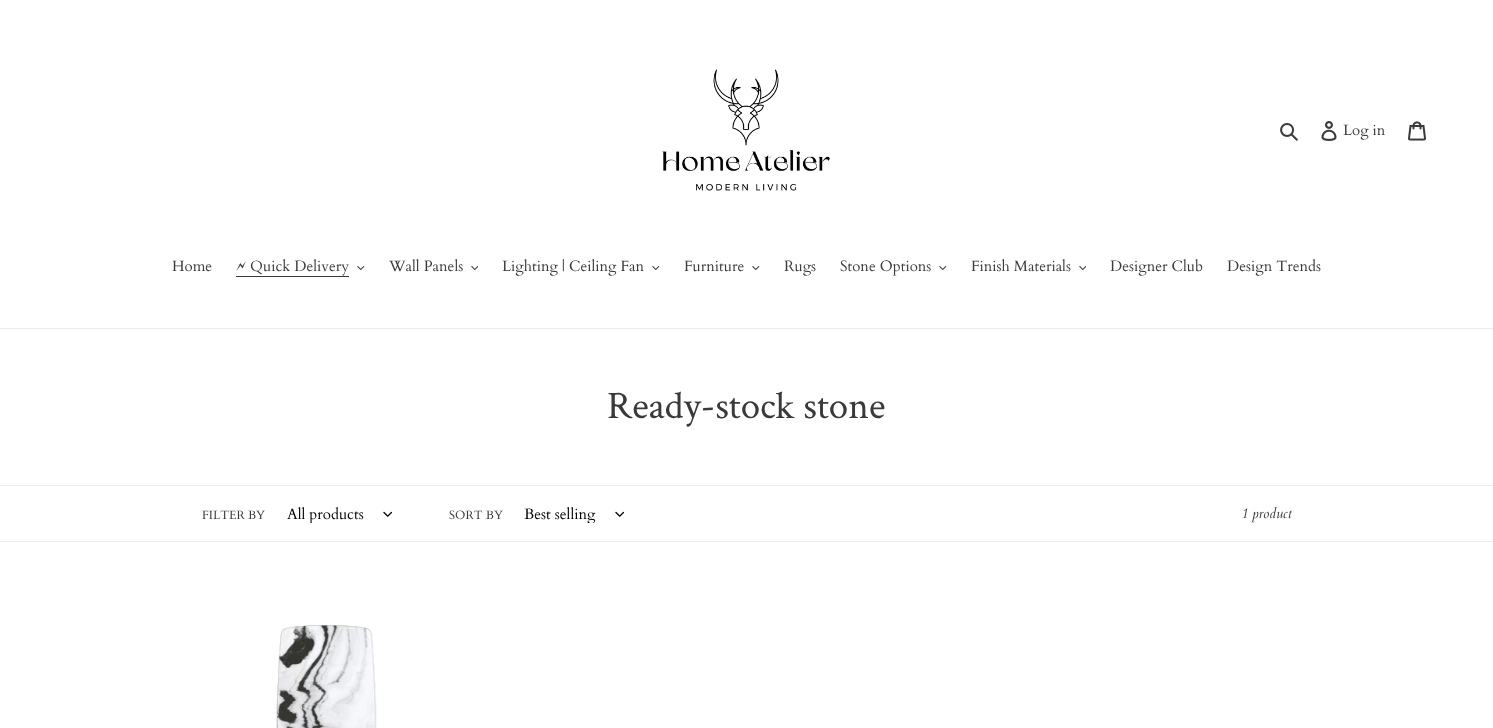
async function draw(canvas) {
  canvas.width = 1493
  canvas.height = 728
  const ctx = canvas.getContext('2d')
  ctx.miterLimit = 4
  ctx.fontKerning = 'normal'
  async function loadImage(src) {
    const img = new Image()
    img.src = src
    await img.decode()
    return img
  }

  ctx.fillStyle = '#fff'
  ctx.fillRect(0, 0, 1493, 728)
  ctx.drawImage(await loadImage('image0.png'), 662, 69, 168, 122)
  ctx.drawImage(await loadImage('image1.png'), 1280, 123, 18, 18)
  ctx.drawImage(await loadImage('image2.png'), 1321, 121, 16, 20)
  ctx.font = '15px Cardo'
  ctx.fillStyle = '#3a3a3a'
  ctx.fillText('Log in', 1343, 135)
  ctx.drawImage(await loadImage('image3.png'), 1408, 121, 18, 20)
  ctx.fillStyle = '#ebebeb'
  ctx.fillRect(0, 328, 1493, 1)
  ctx.fillStyle = '#3a3a3a'
  ctx.fillText('Home', 172, 271)
  ctx.font = '15px FreeSerif'
  ctx.fillText('🗲', 236, 271)
  ctx.font = '15px Cardo'
  ctx.fillText('Quick Delivery', 250, 271)
  ctx.fillRect(236, 276, 113, 1)
  ctx.drawImage(await loadImage('image4.png'), 357, 266, 8, 4)
  ctx.fillText('Wall Panels', 389, 271)
  ctx.drawImage(await loadImage('image5.png'), 471, 266, 7, 4)
  ctx.fillText('Lighting | Ceiling Fan', 502, 271)
  ctx.drawImage(await loadImage('image4.png'), 652, 266, 8, 4)
  ctx.fillText('Furniture', 684, 271)
  ctx.drawImage(await loadImage('image4.png'), 752, 266, 8, 4)
  ctx.fillText('Rugs', 784, 271)
  ctx.fillText('Stone Options', 840, 271)
  ctx.drawImage(await loadImage('image4.png'), 939, 266, 8, 4)
  ctx.fillText('Finish Materials', 971, 271)
  ctx.drawImage(await loadImage('image5.png'), 1079, 266, 7, 4)
  ctx.fillText('Designer Club', 1110, 271)
  ctx.fillText('Design Trends', 1227, 271)
  ctx.font = '39px Crimson Text'
  ctx.fillText('Ready-stock stone', 607, 418)
  ctx.fillStyle = '#ebebeb'
  ctx.fillRect(0, 485, 1493, 1)
  ctx.fillRect(0, 541, 1493, 1)
  ctx.font = '12px Cardo'
  ctx.fillStyle = '#3a3a3a'
  ctx.fillText('FILTER BY', 202, 519)
  ctx.save()
  ctx.beginPath()
  ctx.rect(287, 505, 86, 18)
  ctx.clip()
  ctx.font = '15px Cardo'
  ctx.fillStyle = '#000'
  ctx.fillText('All products', 287, 519)
  ctx.restore()
  ctx.drawImage(await loadImage('image6.png'), 383, 511, 9, 6)
  ctx.fillText('SORT BY', 449, 519)
  ctx.save()
  ctx.beginPath()
  ctx.rect(524, 505, 80, 18)
  ctx.clip()
  ctx.font = '15px Cardo'
  ctx.fillStyle = '#000'
  ctx.fillText('Best selling', 524, 519)
  ctx.restore()
  ctx.drawImage(await loadImage('image6.png'), 615, 511, 9, 6)
  ctx.font = 'italic 14px Cardo'
  ctx.fillText('1 product', 1241, 518)
  ctx.drawImage(await loadImage('image7.png'), 276, 625, 101, 103)
}

draw(document.querySelector('canvas'))
